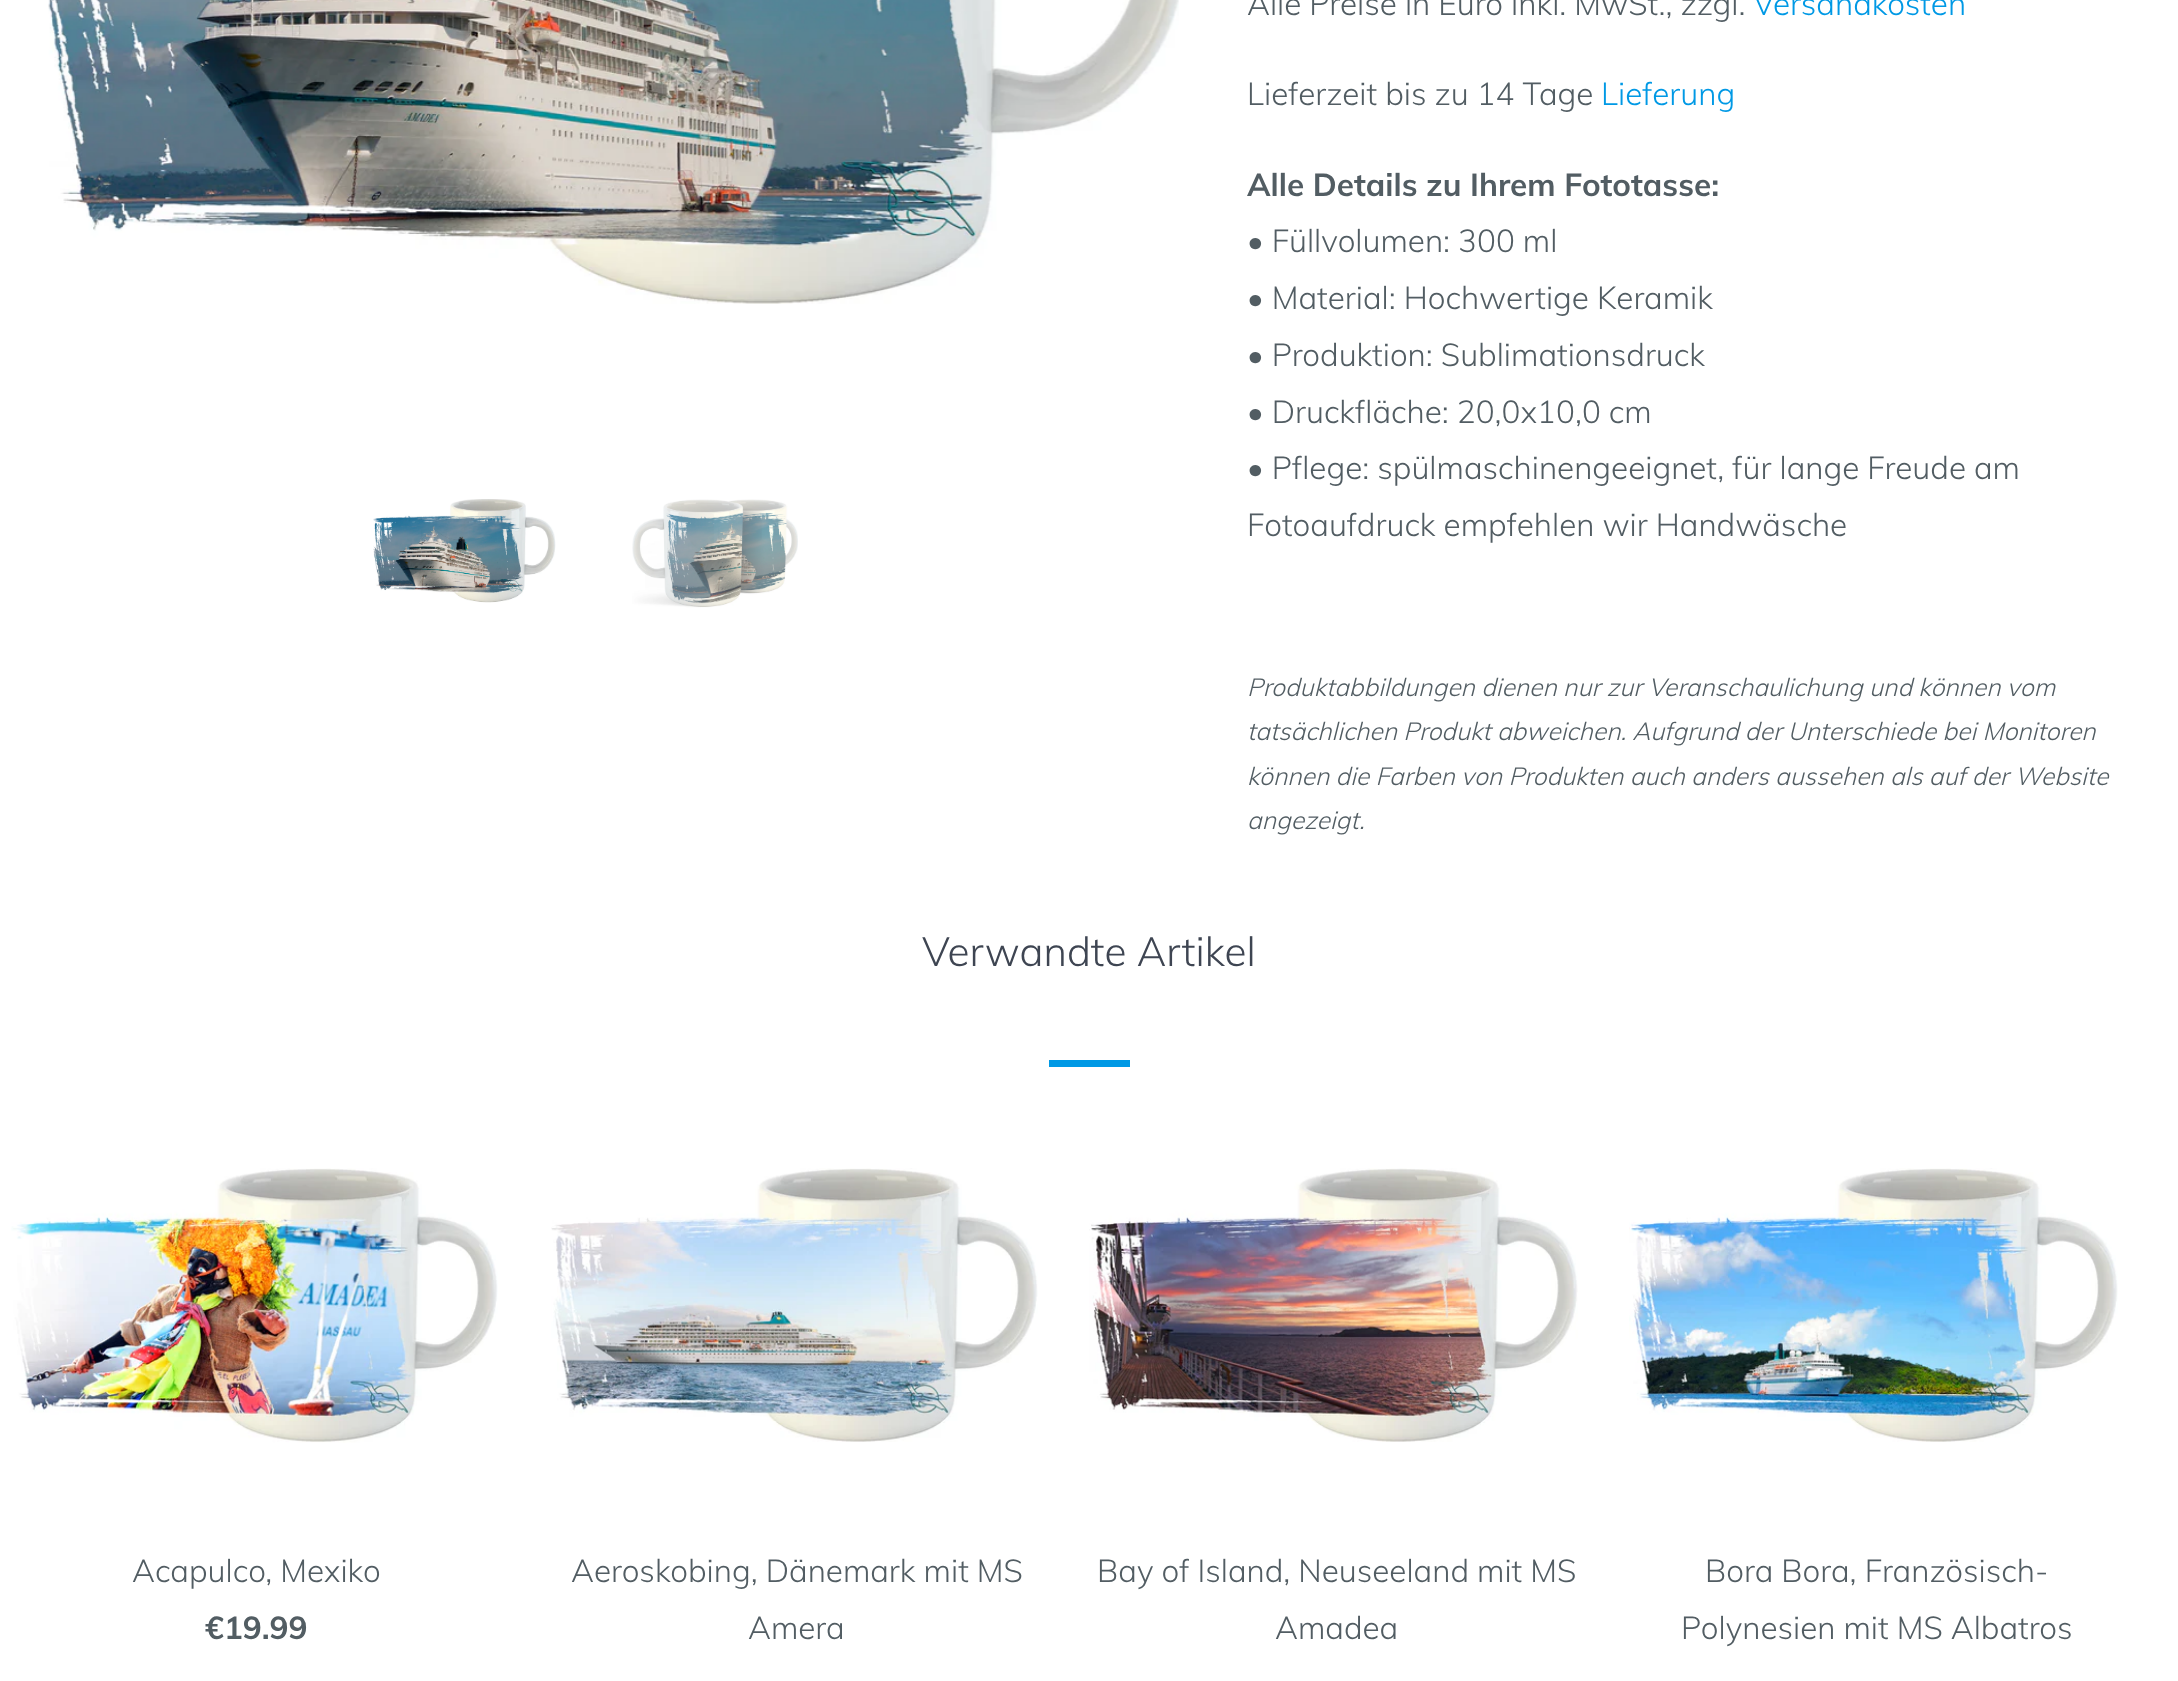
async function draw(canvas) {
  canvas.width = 2178
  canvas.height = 1681
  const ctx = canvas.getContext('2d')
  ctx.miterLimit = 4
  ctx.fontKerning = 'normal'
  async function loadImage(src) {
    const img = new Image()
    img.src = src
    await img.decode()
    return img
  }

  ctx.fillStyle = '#fff'
  ctx.fillRect(0, 0, 2178, 1681)
  ctx.drawImage(await loadImage('image0.png'), 48, 0, 1131, 304)
  ctx.drawImage(await loadImage('image1.png'), 373, 499, 183, 104)
  ctx.drawImage(await loadImage('image2.png'), 632, 499, 166, 109)
  ctx.font = '300 31.5px Muli'
  ctx.fillStyle = '#525d63'
  ctx.fillText('Alle Preise in Euro inkl. MwSt., zzgl.', 1247, 15)
  ctx.fillStyle = '#0099e5'
  ctx.fillText('Versandkosten', 1753, 15)
  ctx.fillStyle = '#525d63'
  ctx.fillText('Lieferzeit bis zu 14 Tage', 1247, 105)
  ctx.fillStyle = '#0099e5'
  ctx.fillText('Lieferung', 1601, 105)
  ctx.font = 'bold 31.5px Muli'
  ctx.fillStyle = '#525d63'
  ctx.fillText('Alle Details zu Ihrem Fototasse:', 1247, 196)
  ctx.font = '300 31.5px Muli'
  ctx.fillText('• Füllvolumen: 300 ml', 1247, 252)
  ctx.fillText('• Material: Hochwertige Keramik', 1247, 309)
  ctx.fillText('• Produktion: Sublimationsdruck', 1247, 366)
  ctx.fillText('• Druckfläche: 20,0x10,0 cm', 1247, 423)
  ctx.fillText('• Pflege: spülmaschinengeeignet, für lange Freude am', 1247, 479)
  ctx.fillText('Fotoaufdruck empfehlen wir Handwäsche', 1247, 536)
  ctx.font = 'italic 300 24.75px Muli'
  ctx.fillText('Produktabbildungen dienen nur zur Veranschaulichung und können vom', 1247, 696)
  ctx.fillText('tatsächlichen Produkt abweichen. Aufgrund der Unterschiede bei Monitoren', 1247, 740)
  ctx.fillText('können die Farben von Produkten auch anders aussehen als auf der Website', 1247, 785)
  ctx.fillText('angezeigt.', 1247, 829)
  ctx.font = '300 40.5px Muli'
  ctx.fillStyle = '#3e4552'
  ctx.fillText('Verwandte Artikel', 922, 966)
  ctx.fillStyle = '#0099e5'
  ctx.fillRect(1049, 1060, 81, 7)
  ctx.drawImage(await loadImage('image3.png'), 11, 1168, 487, 275)
  ctx.font = '300 31.5px Muli'
  ctx.fillStyle = '#525d63'
  ctx.fillText('Acapulco, Mexiko', 132, 1582)
  ctx.font = 'bold 31.5px Muli'
  ctx.fillText('€19.99', 205, 1639)
  ctx.drawImage(await loadImage('image4.png'), 551, 1168, 487, 274)
  ctx.font = '300 31.5px Muli'
  ctx.fillText('Aeroskobing, Dänemark mit MS', 571, 1582)
  ctx.fillText('Amera', 748, 1639)
  ctx.drawImage(await loadImage('image5.png'), 1089, 1168, 489, 274)
  ctx.fillText('Bay of Island, Neuseeland mit MS', 1097, 1582)
  ctx.fillText('Amadea', 1275, 1639)
  ctx.drawImage(await loadImage('image6.png'), 1629, 1168, 489, 274)
  ctx.fillText('Bora Bora, Französisch-', 1705, 1582)
  ctx.fillText('Polynesien mit MS Albatros', 1681, 1639)
}

draw(document.querySelector('canvas'))
